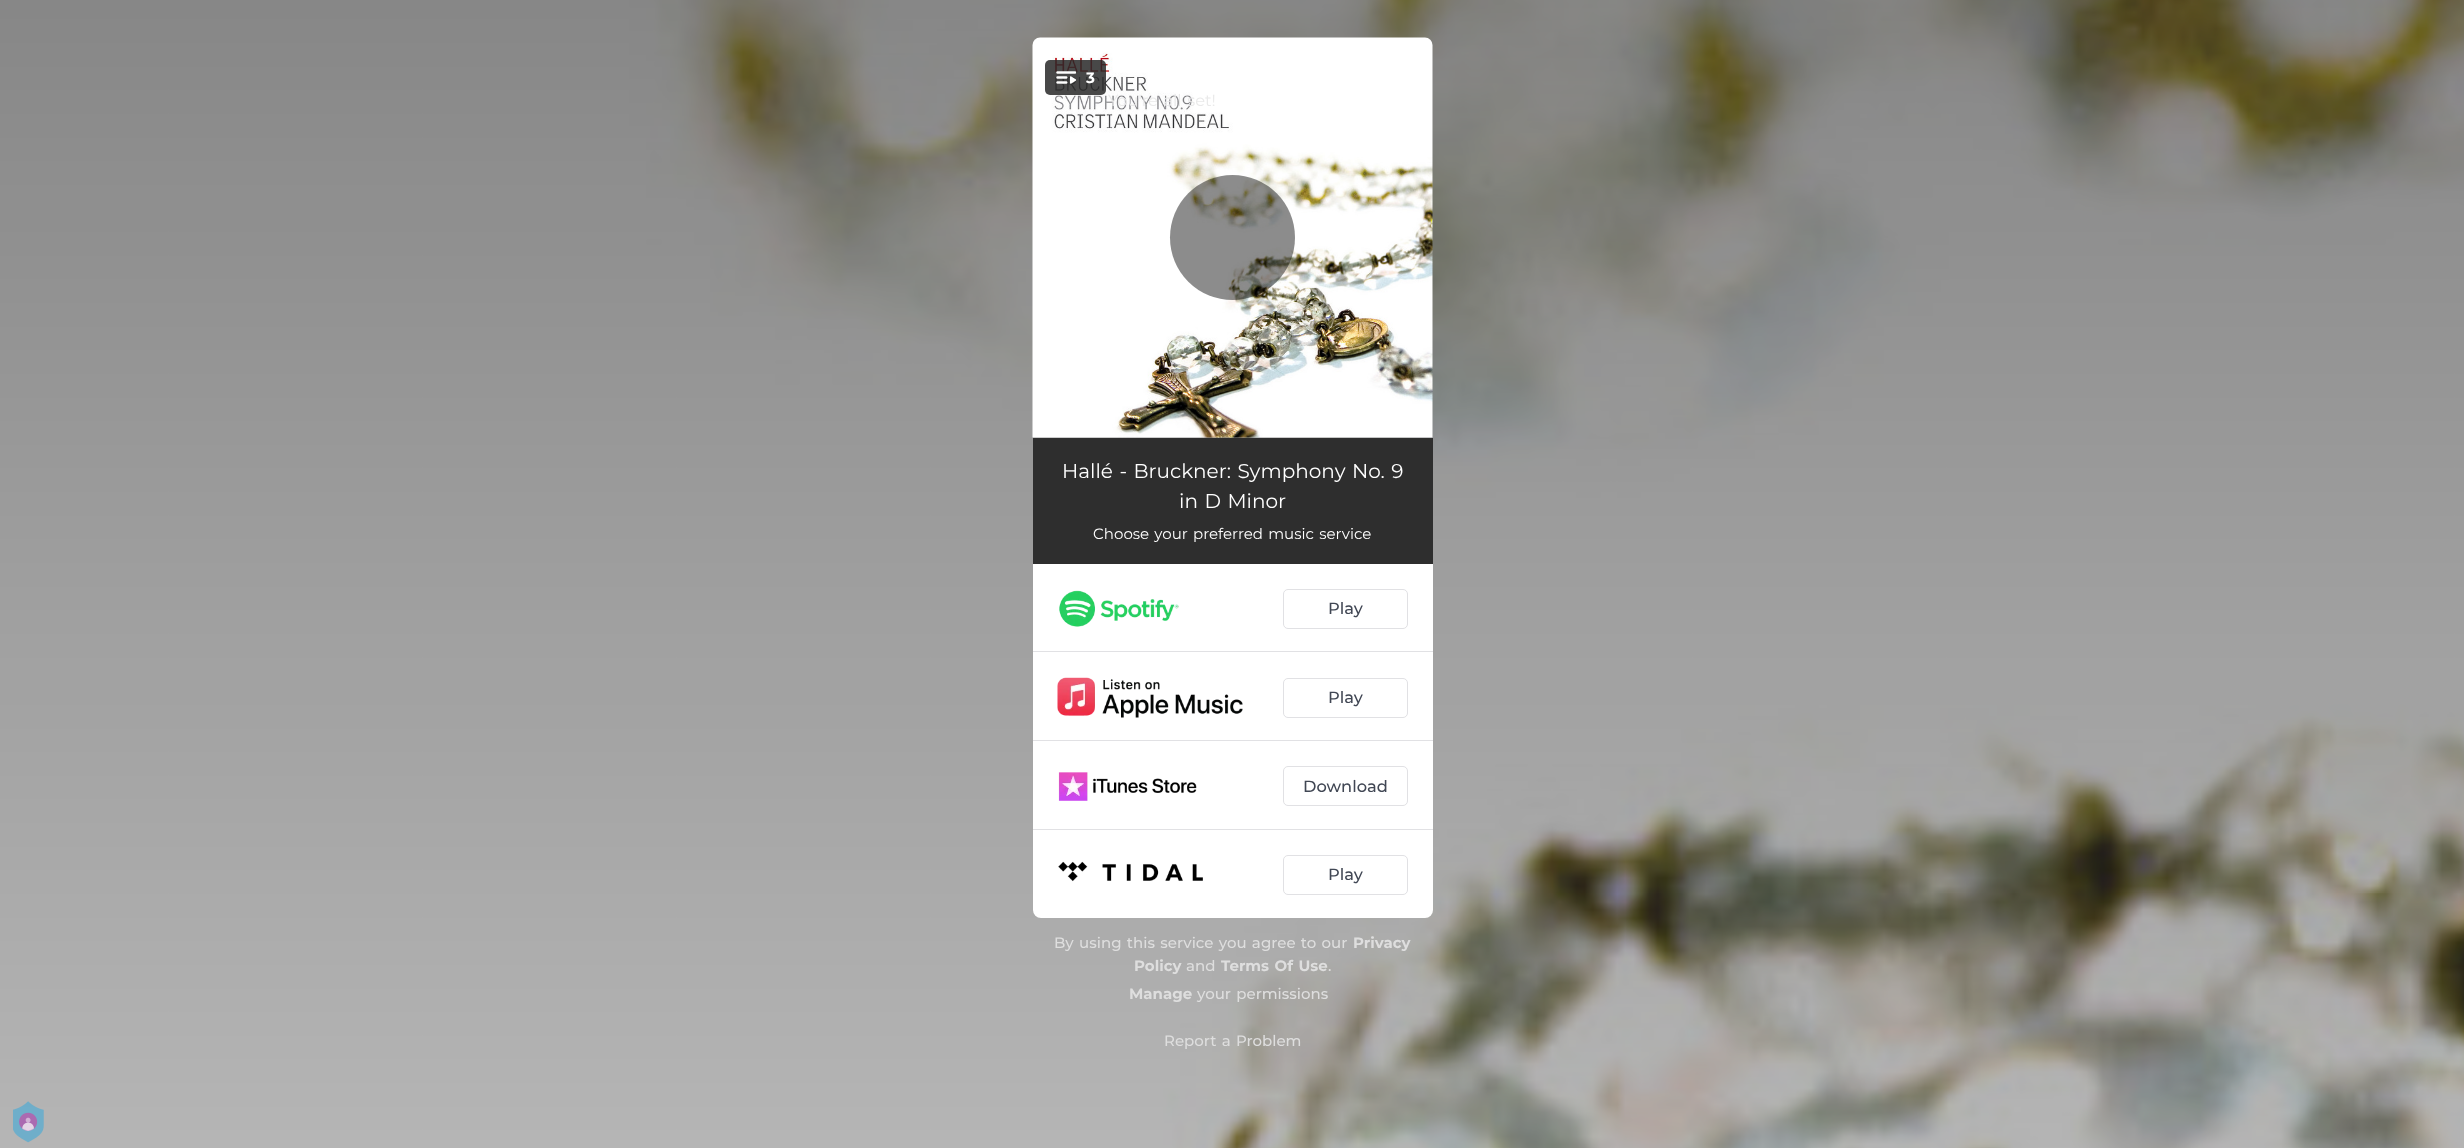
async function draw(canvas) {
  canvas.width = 2464
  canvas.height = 1148
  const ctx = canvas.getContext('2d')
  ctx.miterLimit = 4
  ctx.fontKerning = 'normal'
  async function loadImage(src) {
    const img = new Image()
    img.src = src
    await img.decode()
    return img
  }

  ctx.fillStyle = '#fff'
  ctx.fillRect(0, 0, 2464, 1148)
  ctx.drawImage(await loadImage('image0.png'), 0, 0, 2464, 1148)
  ctx.drawImage(await loadImage('image1.png'), 1032, 37, 401, 401)
  ctx.fillStyle = '#282828d9'
  ctx.beginPath()
  ctx.roundRect(1045, 60, 61, 35, 5)
  ctx.fill()
  ctx.drawImage(await loadImage('image2.png'), 1056, 71, 20, 13)
  ctx.font = 'bold 15px Montserrat'
  ctx.fillStyle = '#fff'
  ctx.fillText('3', 1086, 83)
  ctx.fillStyle = '#00000073'
  ctx.beginPath()
  ctx.arc(1232.5, 237.5, 62.5, 0, 2 * Math.PI)
  ctx.fill()
  ctx.wordSpacing = '1.25px'
  ctx.font = '16.25px Montserrat'
  ctx.fillStyle = '#eaeaea'
  ctx.fillText('You\'re all set!', 1108, 106)
  ctx.fillStyle = '#2e2e2e'
  ctx.fillRect(1033, 438, 400, 126)
  ctx.font = '20px Montserrat'
  ctx.fillStyle = '#fff'
  ctx.fillText('Hallé - Bruckner: Symphony No. 9', 1062, 478)
  ctx.fillText('in D Minor', 1179, 508)
  ctx.font = '15px Montserrat'
  ctx.fillText('Choose your preferred music service', 1093, 539)
  ctx.beginPath()
  ctx.roundRect(1033, 564, 400, 354, [0, 0, 8, 8])
  ctx.fill()
  ctx.fillStyle = '#e1e1e4'
  ctx.fillRect(1033, 651, 400, 1)
  ctx.drawImage(await loadImage('image3.png'), 1059, 590, 120, 37)
  ctx.beginPath()
  ctx.roundRect(1283.5, 589.5, 124, 39, 4.5)
  ctx.strokeStyle = '#e1e1e4'
  ctx.stroke()
  ctx.wordSpacing = '0px'
  ctx.font = '500 16.25px Montserrat'
  ctx.fillStyle = '#414754'
  ctx.fillText('Play', 1328, 614)
  ctx.fillStyle = '#e1e1e4'
  ctx.fillRect(1033, 740, 400, 1)
  ctx.drawImage(await loadImage('image4.png'), 1057, 677, 186, 41)
  ctx.beginPath()
  ctx.roundRect(1283.5, 678.5, 124, 39, 4.5)
  ctx.stroke()
  ctx.fillStyle = '#414754'
  ctx.fillText('Play', 1328, 703)
  ctx.fillStyle = '#e1e1e4'
  ctx.fillRect(1033, 829, 400, 1)
  ctx.drawImage(await loadImage('image5.png'), 1058, 772, 139, 29)
  ctx.beginPath()
  ctx.roundRect(1283.5, 766.5, 124, 39, 4.5)
  ctx.stroke()
  ctx.fillStyle = '#414754'
  ctx.fillText('Download', 1303, 792)
  ctx.drawImage(await loadImage('image6.png'), 1058, 861, 145, 21)
  ctx.beginPath()
  ctx.roundRect(1283.5, 855.5, 124, 39, 4.5)
  ctx.stroke()
  ctx.fillText('Play', 1328, 880)
  ctx.wordSpacing = '1.25px'
  ctx.font = '500 15px Montserrat'
  ctx.fillStyle = '#dedede'
  ctx.fillText('By using this service you agree to our', 1054, 948)
  ctx.wordSpacing = '0px'
  ctx.font = 'bold 15px Montserrat'
  ctx.fillText('Privacy', 1353, 948)
  ctx.fillText('Policy', 1134, 971)
  ctx.font = '500 15px Montserrat'
  ctx.fillText('and', 1186, 971)
  ctx.wordSpacing = '1.25px'
  ctx.font = 'bold 15px Montserrat'
  ctx.fillText('Terms Of Use', 1221, 971)
  ctx.wordSpacing = '0px'
  ctx.font = '500 15px Montserrat'
  ctx.fillText('.', 1328, 971)
  ctx.font = 'bold 15px Montserrat'
  ctx.fillText('Manage', 1129, 999)
  ctx.wordSpacing = '1.25px'
  ctx.font = '500 15px Montserrat'
  ctx.fillText('your permissions', 1197, 999)
  ctx.fillText('Report a Problem', 1164, 1046)
  ctx.drawImage(await loadImage('image7.png'), 13, 1101, 31, 42)
}

draw(document.querySelector('canvas'))
